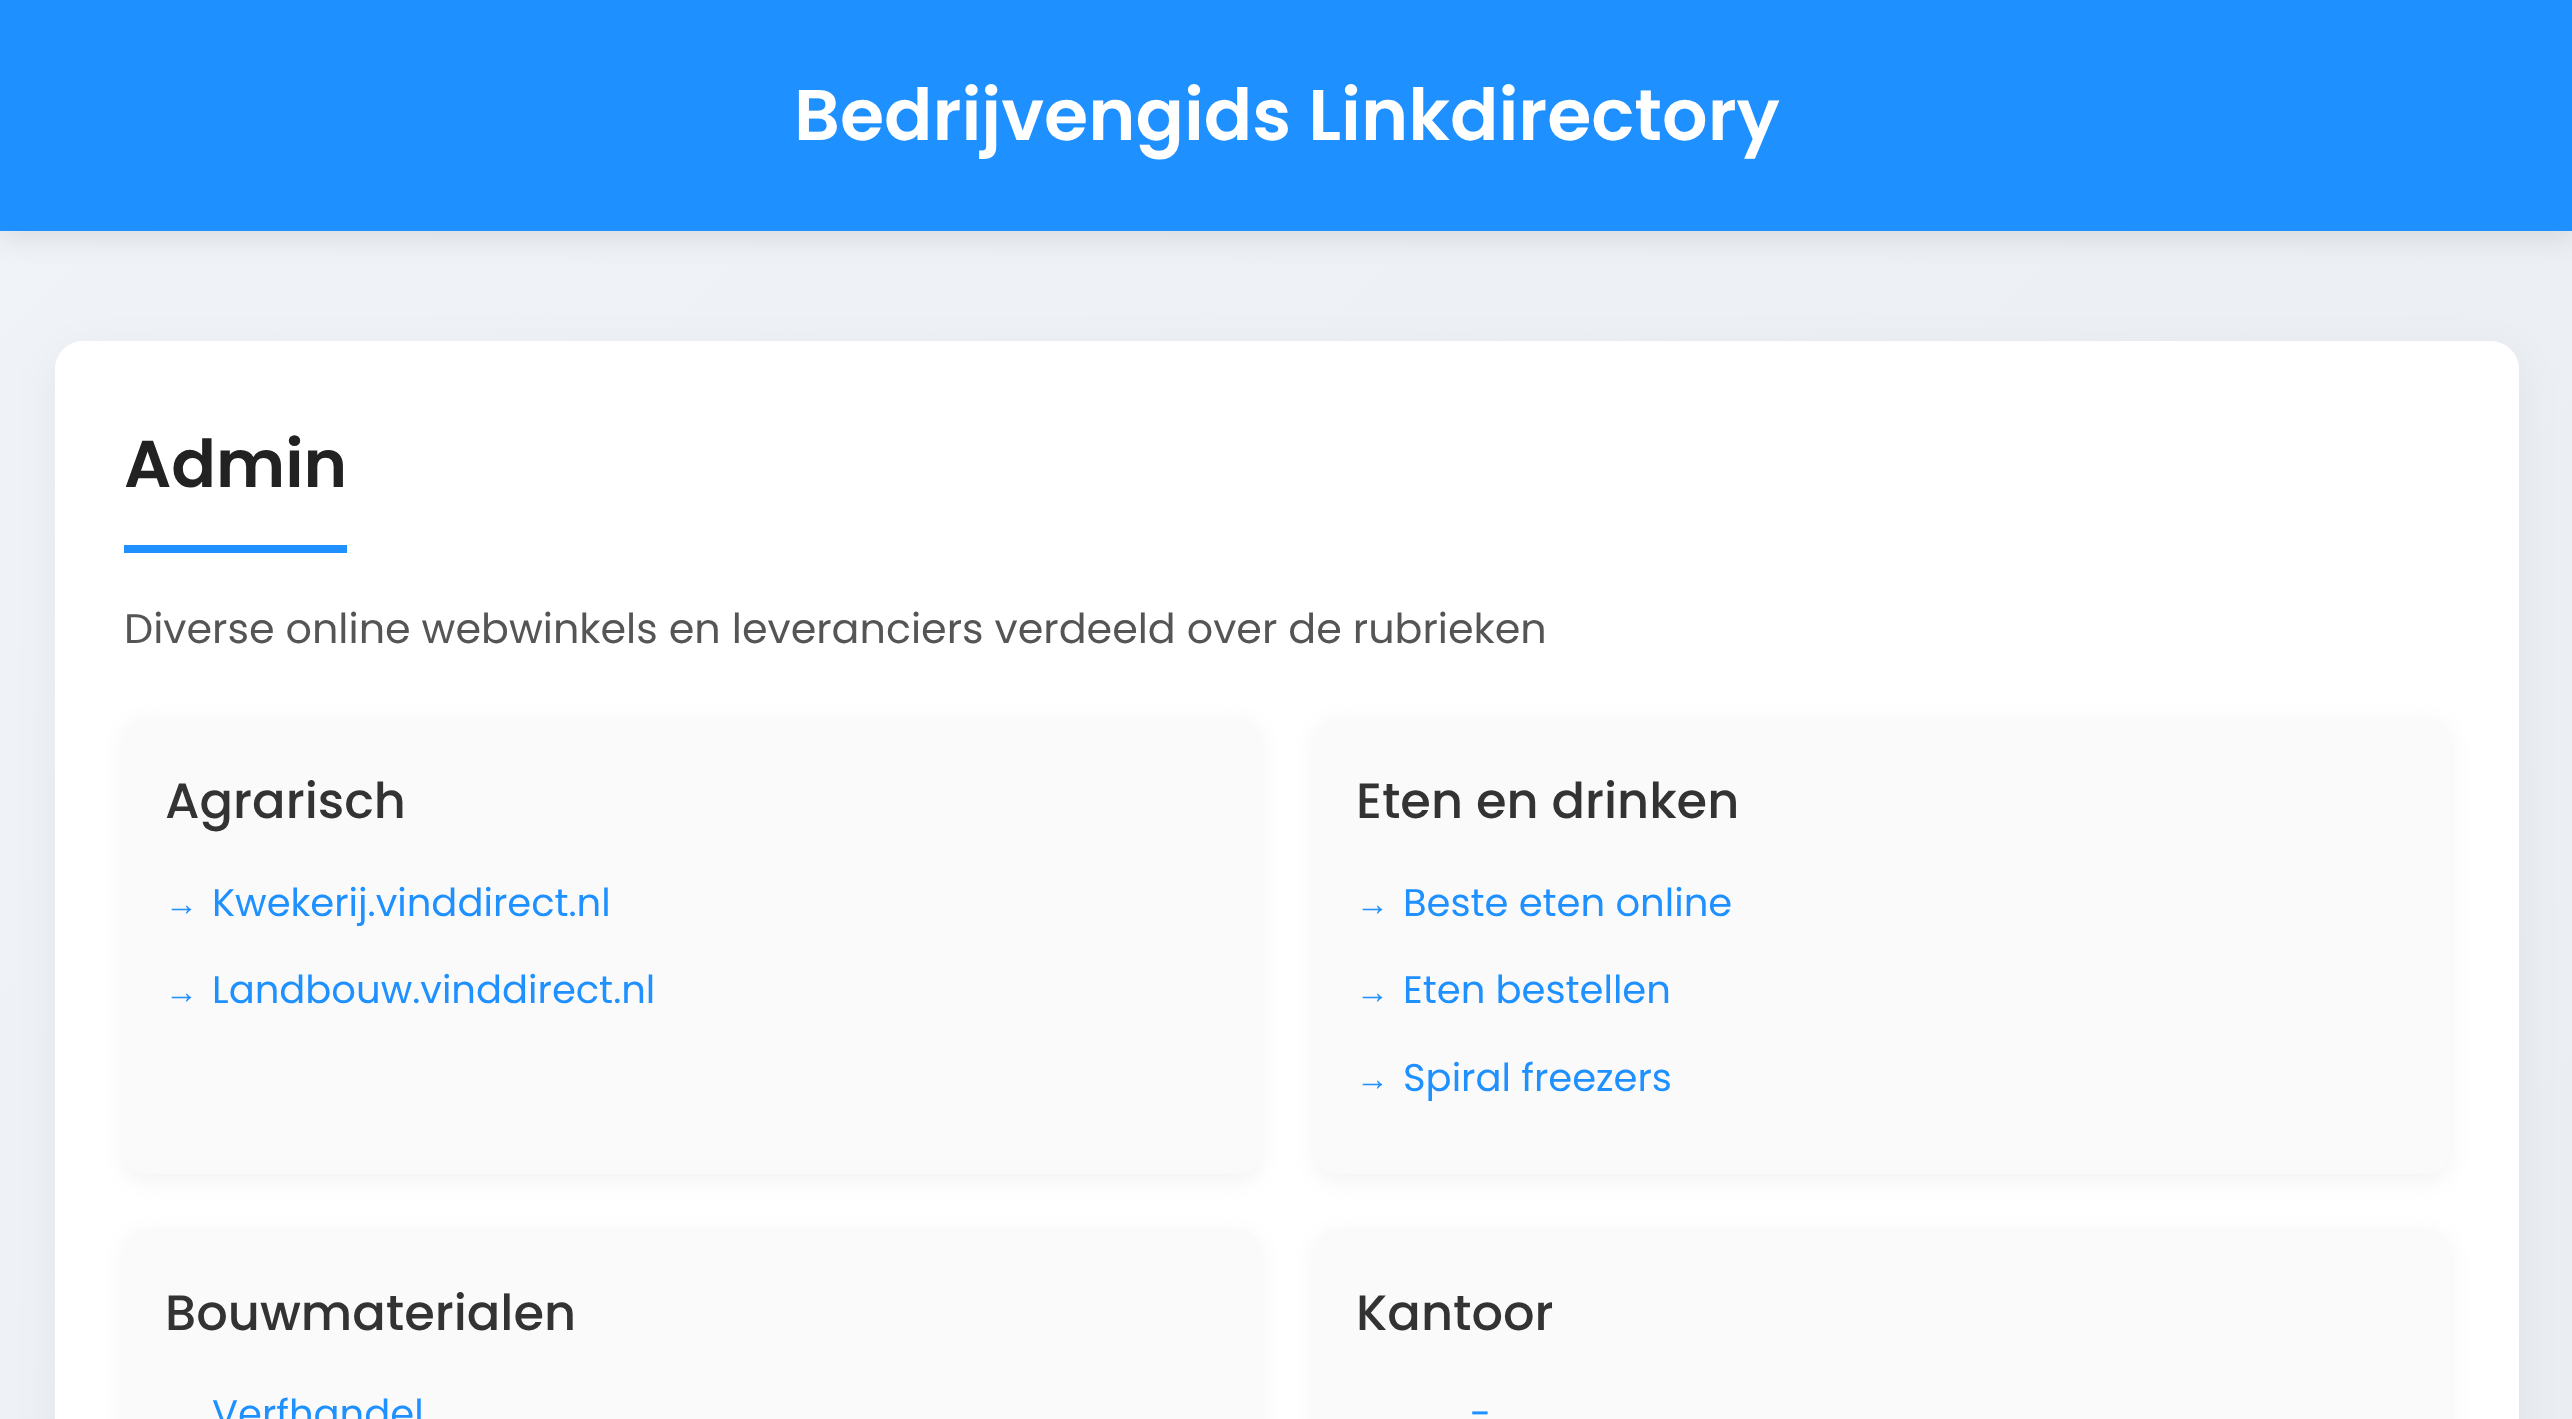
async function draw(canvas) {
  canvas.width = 2572
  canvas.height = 1419
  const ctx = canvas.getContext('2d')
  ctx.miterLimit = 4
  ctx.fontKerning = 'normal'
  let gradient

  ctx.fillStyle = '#fff'
  ctx.fillRect(0, 0, 2572, 1419)
  gradient = ctx.createLinearGradient(-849, 849, 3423, 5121)
  gradient.addColorStop(0, '#f0f4f8')
  gradient.addColorStop(1, '#e3e7eb')
  ctx.fillStyle = gradient
  ctx.fillRect(0, 231, 2572, 1188)
  ctx.fillStyle = '#0000001a'
  ctx.filter = 'blur(14px)'
  ctx.beginPath()
  ctx.rect(0, 6, 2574, 231)
  ctx.fill()
  ctx.filter = 'none'
  ctx.fillStyle = '#1e90ff'
  ctx.fillRect(0, 0, 2572, 231)
  ctx.font = '600 71.5px Poppins'
  ctx.fillStyle = '#fff'
  ctx.fillText('Bedrijvengids Linkdirectory', 794, 140)
  ctx.fillStyle = '#0000000d'
  ctx.filter = 'blur(20.5px)'
  ctx.beginPath()
  ctx.roundRect(55, 352, 2464, 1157, 28)
  ctx.fill()
  ctx.filter = 'none'
  ctx.fillStyle = '#fff'
  ctx.beginPath()
  ctx.roundRect(55, 341, 2464, 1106, 28)
  ctx.fill()
  ctx.fillStyle = '#1e90ff'
  ctx.fillRect(124, 545, 223, 8)
  ctx.font = '600 66px Poppins'
  ctx.fillStyle = '#222'
  ctx.fillText('Admin', 124, 487)
  ctx.font = '41.25px Poppins'
  ctx.fillStyle = '#555'
  ctx.fillText('Diverse online webwinkels en leveranciers verdeeld over de rubrieken', 124, 643)
  ctx.fillStyle = '#0000000d'
  ctx.filter = 'blur(11px)'
  ctx.beginPath()
  ctx.roundRect(124, 723, 1136, 457, 22)
  ctx.fill()
  ctx.filter = 'none'
  ctx.fillStyle = '#fafafa'
  ctx.beginPath()
  ctx.roundRect(124, 718, 1136, 456, 22)
  ctx.fill()
  ctx.font = '500 49.5px Poppins'
  ctx.fillStyle = '#333'
  ctx.fillText('Agrarisch', 165, 818)
  ctx.font = '33px Liberation Sans'
  ctx.fillStyle = '#1e90ff'
  ctx.fillText('→', 165, 915)
  ctx.font = '38.5px Poppins'
  ctx.fillText('Kwekerij.vinddirect.nl', 212, 916)
  ctx.font = '33px Liberation Sans'
  ctx.fillText('→', 165, 1003)
  ctx.font = '38.5px Poppins'
  ctx.fillText('Landbouw.vinddirect.nl', 212, 1003)
  ctx.fillStyle = '#0000000d'
  ctx.filter = 'blur(11px)'
  ctx.beginPath()
  ctx.roundRect(1315, 723, 1135, 457, 22)
  ctx.fill()
  ctx.filter = 'none'
  ctx.fillStyle = '#fafafa'
  ctx.beginPath()
  ctx.roundRect(1315, 718, 1135, 456, 22)
  ctx.fill()
  ctx.font = '500 49.5px Poppins'
  ctx.fillStyle = '#333'
  ctx.fillText('Eten en drinken', 1356, 818)
  ctx.font = '33px Liberation Sans'
  ctx.fillStyle = '#1e90ff'
  ctx.fillText('→', 1356, 915)
  ctx.font = '38.5px Poppins'
  ctx.fillText('Beste eten online', 1403, 916)
  ctx.font = '33px Liberation Sans'
  ctx.fillText('→', 1356, 1003)
  ctx.font = '38.5px Poppins'
  ctx.fillText('Eten bestellen', 1403, 1003)
  ctx.font = '33px Liberation Sans'
  ctx.fillText('→', 1356, 1090)
  ctx.font = '38.5px Poppins'
  ctx.fillText('Spiral freezers', 1403, 1091)
  ctx.fillStyle = '#0000000d'
  ctx.filter = 'blur(11px)'
  ctx.beginPath()
  ctx.roundRect(124, 1235, 1136, 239, 22)
  ctx.fill()
  ctx.filter = 'none'
  ctx.fillStyle = '#fafafa'
  ctx.beginPath()
  ctx.roundRect(124, 1229, 1136, 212, 22)
  ctx.fill()
  ctx.font = '500 49.5px Poppins'
  ctx.fillStyle = '#333'
  ctx.fillText('Bouwmaterialen', 165, 1330)
  ctx.font = '38.5px Poppins'
  ctx.fillStyle = '#1e90ff'
  ctx.fillText('Verfhandel', 212, 1427)
  ctx.fillStyle = '#0000000d'
  ctx.filter = 'blur(11px)'
  ctx.beginPath()
  ctx.roundRect(1315, 1235, 1135, 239, 22)
  ctx.fill()
  ctx.filter = 'none'
  ctx.fillStyle = '#fafafa'
  ctx.beginPath()
  ctx.roundRect(1315, 1229, 1135, 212, 22)
  ctx.fill()
  ctx.font = '500 49.5px Poppins'
  ctx.fillStyle = '#333'
  ctx.fillText('Kantoor', 1356, 1330)
  ctx.font = '38.5px Poppins'
  ctx.fillStyle = '#1e90ff'
  ctx.fillText('-', 1470, 1427)
}

draw(document.querySelector('canvas'))
